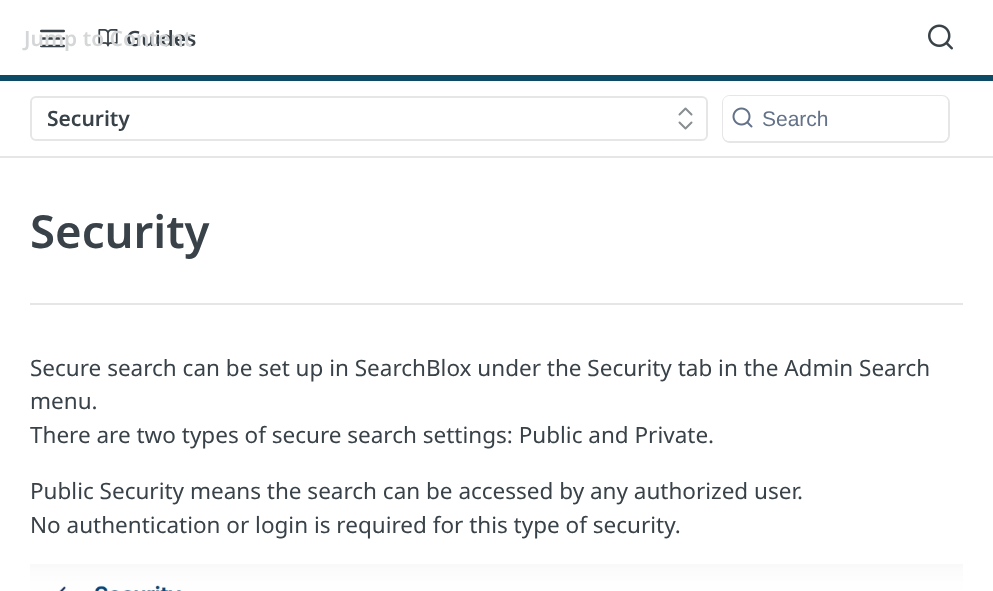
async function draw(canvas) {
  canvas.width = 993
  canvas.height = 591
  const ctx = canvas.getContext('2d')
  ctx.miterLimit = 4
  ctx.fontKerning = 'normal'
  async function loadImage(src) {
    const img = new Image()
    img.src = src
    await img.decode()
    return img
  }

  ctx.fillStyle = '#fff'
  ctx.fillRect(0, 0, 993, 591)
  ctx.fillStyle = '#e6e6e6'
  ctx.fillRect(0, 156, 993, 2)
  ctx.fillStyle = '#0d4a66'
  ctx.fillRect(0, 75, 993, 6)
  ctx.drawImage(await loadImage('image1.png'), 40, 29, 25, 19)
  ctx.drawImage(await loadImage('image2.png'), 98, 29, 20, 18)
  ctx.font = '600 21px Noto Sans'
  ctx.fillStyle = '#384248'
  ctx.fillText('Guides', 126, 46)
  ctx.fillStyle = '#d4d6d7'
  ctx.fillText('Jump to Content', 24, 46)
  ctx.drawImage(await loadImage('image0.png'), 928, 24, 25, 26)
  ctx.beginPath()
  ctx.roundRect(31, 97, 676, 43, 5)
  ctx.strokeStyle = '#e6e6e6'
  ctx.lineWidth = 2
  ctx.stroke()
  ctx.fillStyle = '#384248'
  ctx.fillText('Security', 47, 126)
  ctx.beginPath()
  ctx.moveTo(679.5, 122.5)
  ctx.lineTo(685.5, 128.5)
  ctx.lineTo(691.5, 122.5)
  ctx.moveTo(691.5, 114.5)
  ctx.lineTo(685.5, 108.5)
  ctx.lineTo(679.5, 114.5)
  ctx.strokeStyle = '#888e91'
  ctx.lineCap = 'round'
  ctx.lineJoin = 'round'
  ctx.stroke()
  ctx.beginPath()
  ctx.roundRect(723, 96, 226, 46, 7)
  ctx.strokeStyle = '#e6e6e6'
  ctx.lineJoin = 'miter'
  ctx.stroke()
  ctx.fillStyle = '#fff'
  ctx.beginPath()
  ctx.roundRect(723, 96, 225, 45, 6)
  ctx.fill()
  ctx.drawImage(await loadImage('image3.png'), 732, 107, 21, 21)
  ctx.font = '21px Liberation Sans'
  ctx.fillStyle = '#637288'
  ctx.fillText('Search', 762, 126)
  ctx.fillStyle = '#e6e6e6'
  ctx.fillRect(30, 303, 933, 2)
  ctx.font = '600 45.5px Noto Sans'
  ctx.fillStyle = '#384248'
  ctx.fillText('Security', 30, 248)
  ctx.font = '22.5px Noto Sans'
  ctx.fillText('Secure search can be set up in SearchBlox under the Security tab in the Admin Search', 30, 376)
  ctx.fillText('menu.', 30, 409)
  ctx.fillText('There are two types of secure search settings: Public and Private.', 30, 443)
  ctx.fillText('Public Security means the search can be accessed by any authorized user.', 30, 499)
  ctx.fillText('No authentication or login is required for this type of security.', 30, 533)
  ctx.drawImage(await loadImage('image4.png'), 30, 564, 933, 27)
}

draw(document.querySelector('canvas'))
